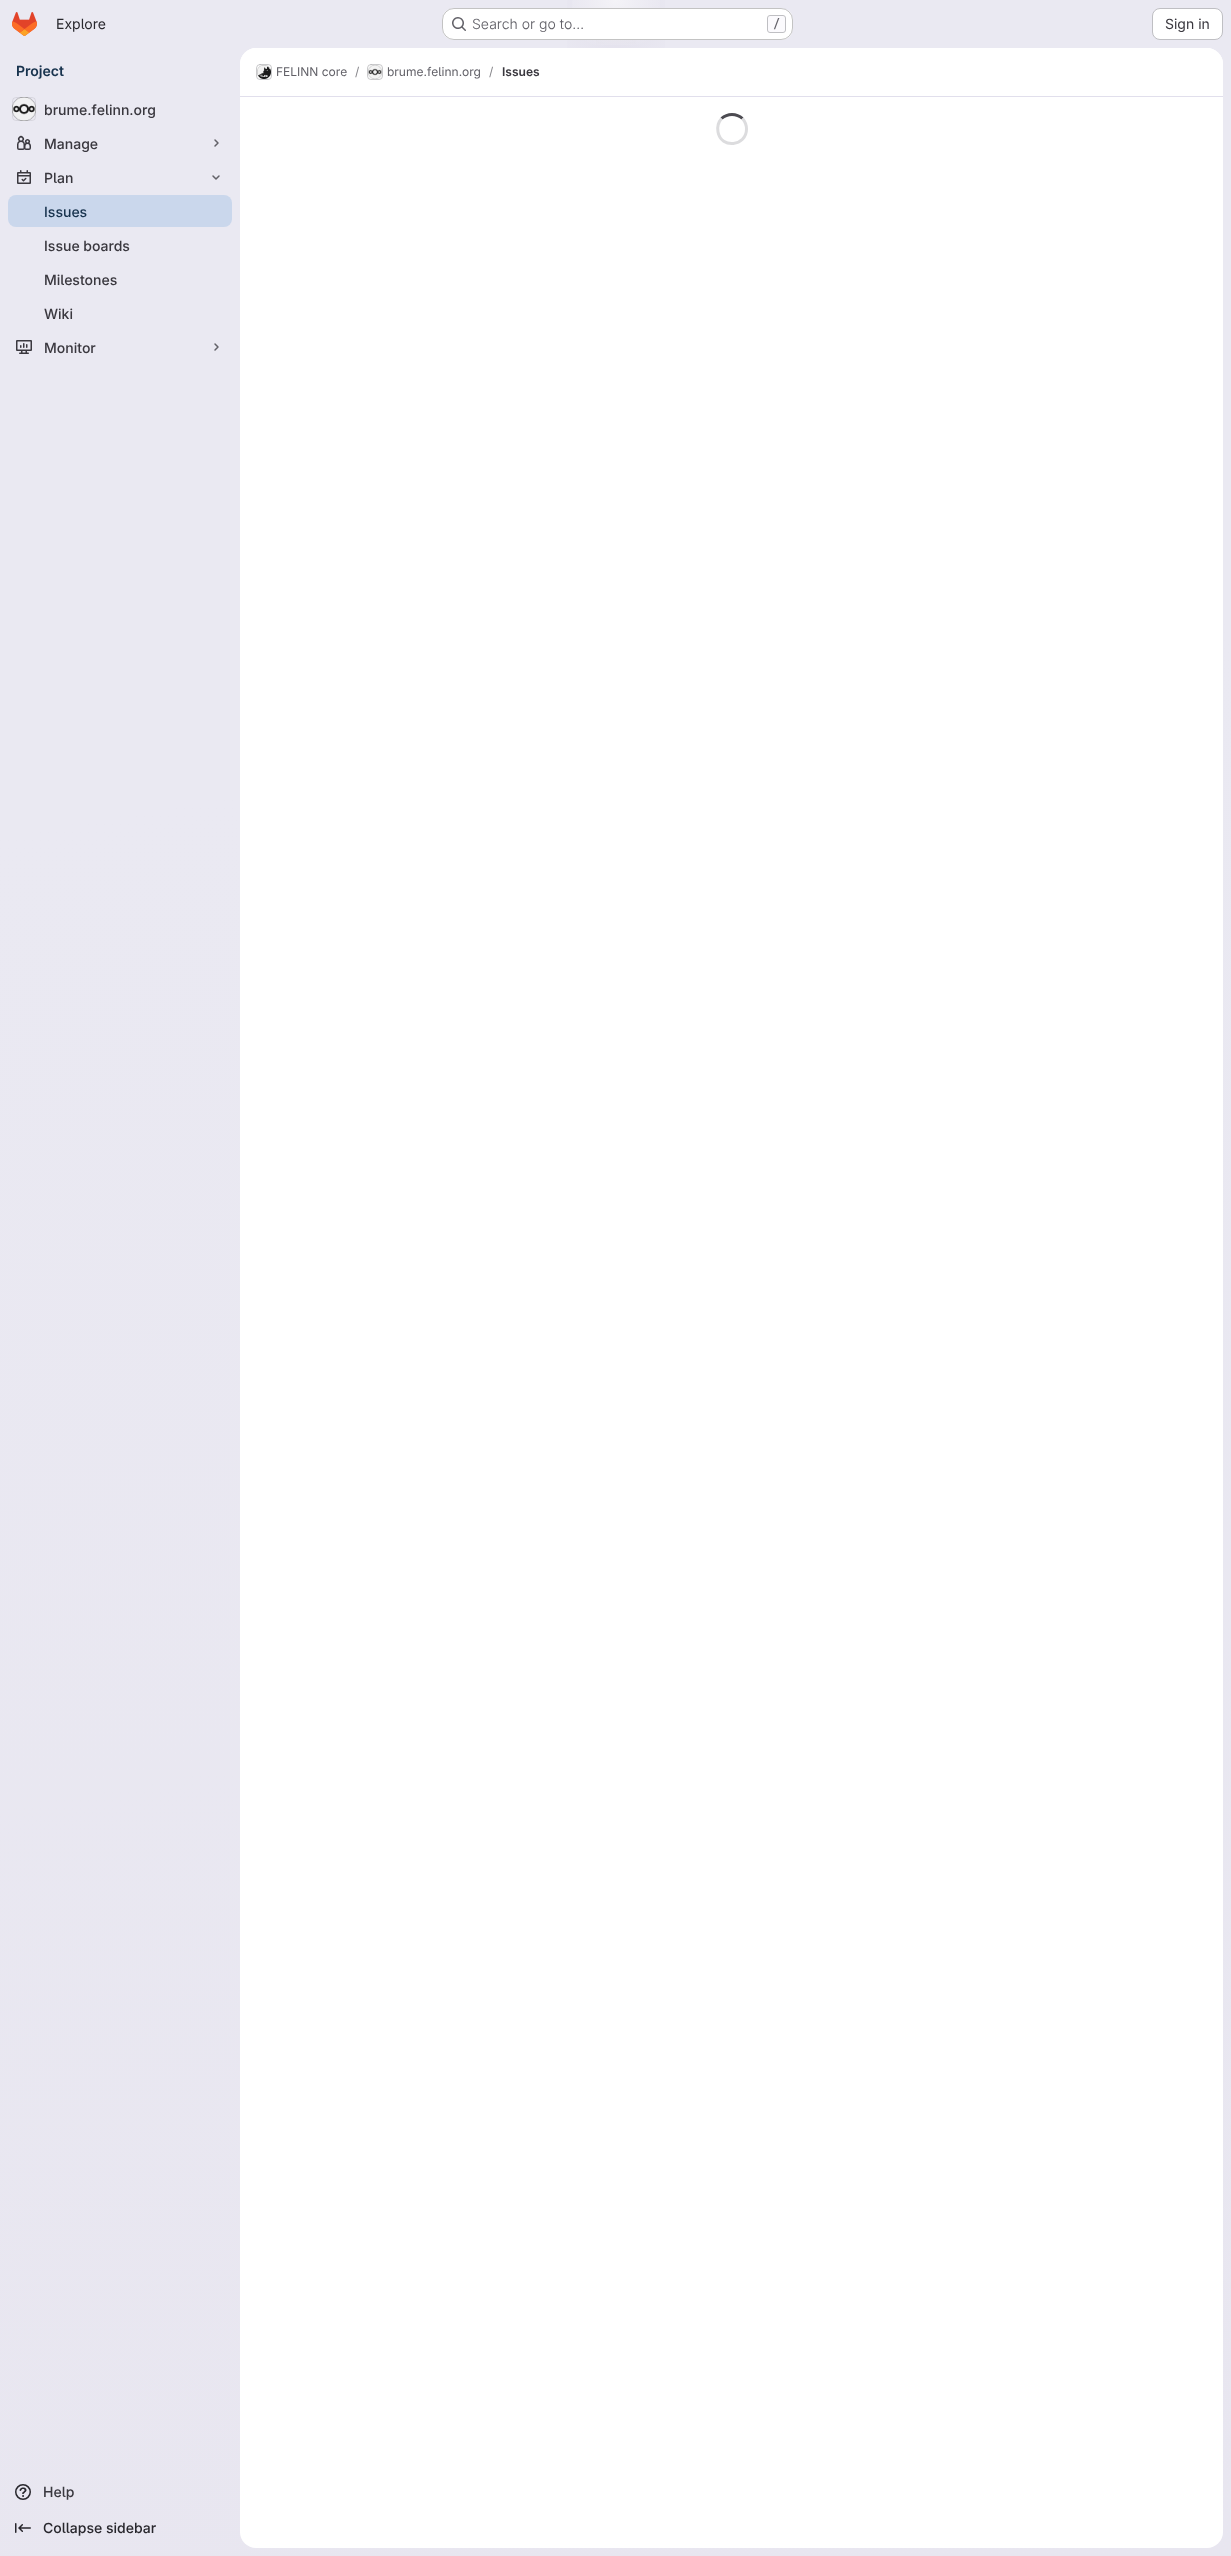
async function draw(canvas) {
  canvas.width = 1231
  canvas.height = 2556
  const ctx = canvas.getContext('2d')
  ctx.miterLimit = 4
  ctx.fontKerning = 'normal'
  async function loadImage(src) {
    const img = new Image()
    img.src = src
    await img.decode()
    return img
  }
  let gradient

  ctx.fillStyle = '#fff'
  ctx.fillRect(0, 0, 1231, 2556)
  gradient = ctx.createLinearGradient(853, 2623, 378, -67)
  gradient.addColorStop(0, '#e8e6f0')
  gradient.addColorStop(0.7, '#eae9f2')
  ctx.fillStyle = gradient
  ctx.fillRect(0, 0, 1231, 2556)
  gradient = ctx.createRadialGradient(616, 0, 0, 616, 0, 616)
  gradient.addColorStop(0, '#e4e2ed')
  gradient.addColorStop(0.11, '#e4e2ed00')
  ctx.fillStyle = gradient
  ctx.beginPath()
  ctx.rect(567, 0, 98, 48)
  ctx.save()
  ctx.clip()
  ctx.scale(1, 2556 / 616)
  ctx.fillRect(0, 0, 1231, 616)
  ctx.restore()
  gradient = ctx.createRadialGradient(616, 0, 0, 616, 0, 616)
  gradient.addColorStop(0, '#e4e2ec')
  gradient.addColorStop(0.08, '#e4e2ec00')
  ctx.fillStyle = gradient
  ctx.beginPath()
  ctx.rect(596, 9, 40, 35)
  ctx.save()
  ctx.clip()
  ctx.scale(1, 2556 / 616)
  ctx.fillRect(0, 0, 1231, 616)
  ctx.restore()
  gradient = ctx.createRadialGradient(616, 0, 0, 616, 0, 2629)
  gradient.addColorStop(0, '#ffffff99')
  gradient.addColorStop(0.02, '#ffffff00')
  ctx.fillStyle = gradient
  ctx.fillRect(572, 0, 88, 45)
  ctx.drawImage(await loadImage('image0.png'), 12, 12, 25, 24)
  ctx.font = '14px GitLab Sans'
  ctx.fillStyle = '#28272d'
  ctx.fillText('Explore', 56, 29)
  ctx.fillStyle = '#fff'
  ctx.beginPath()
  ctx.roundRect(442, 8, 351, 32, 12)
  ctx.fill()
  ctx.beginPath()
  ctx.roundRect(442.5, 8.5, 350, 31, 11.5)
  ctx.strokeStyle = '#0505063d'
  ctx.stroke()
  ctx.drawImage(await loadImage('image1.png'), 452, 17, 14, 14)
  ctx.font = '300 14px GitLab Sans'
  ctx.fillStyle = '#626168'
  ctx.fillText('Search or go to…', 472, 29)
  ctx.fillStyle = '#fbfafd'
  ctx.beginPath()
  ctx.roundRect(767.5, 15.5, 18, 17, 2.5)
  ctx.fill()
  ctx.strokeStyle = '#bfbfc3'
  ctx.stroke()
  ctx.font = '500 12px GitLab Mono'
  ctx.fillStyle = '#626168'
  ctx.fillText('/', 773, 28)
  ctx.fillStyle = '#fff'
  ctx.beginPath()
  ctx.roundRect(1152.5, 8.5, 70, 31, 7.5)
  ctx.fill()
  ctx.stroke()
  ctx.font = '14px GitLab Sans'
  ctx.fillStyle = '#3a383f'
  ctx.fillText('Sign in', 1165, 29)
  ctx.font = '600 14px GitLab Sans'
  ctx.fillStyle = '#18334e'
  ctx.fillText('Project', 16, 76)
  ctx.drawImage(await loadImage('image2.png'), 12, 97, 24, 24)
  ctx.beginPath()
  ctx.roundRect(12.5, 97.5, 23, 23, 3.5)
  ctx.strokeStyle = '#05050614'
  ctx.stroke()
  ctx.font = '500 14px GitLab Sans'
  ctx.fillStyle = '#3a383f'
  ctx.fillText('brume.felinn.org', 44, 115)
  ctx.drawImage(await loadImage('image3.png'), 17, 135, 14, 15)
  ctx.fillText('Manage', 44, 149)
  ctx.beginPath()
  ctx.moveTo(215, 140)
  ctx.lineTo(218, 143)
  ctx.lineTo(215, 146)
  ctx.strokeStyle = '#626168'
  ctx.lineWidth = 1.5
  ctx.lineCap = 'round'
  ctx.lineJoin = 'round'
  ctx.stroke()
  ctx.drawImage(await loadImage('image4.png'), 17, 170, 14, 14)
  ctx.fillText('Plan', 44, 183)
  ctx.beginPath()
  ctx.moveTo(219, 176)
  ctx.lineTo(216, 179)
  ctx.lineTo(213, 176)
  ctx.stroke()
  ctx.fillStyle = '#cad7ec'
  ctx.beginPath()
  ctx.roundRect(8, 195, 224, 32, 8)
  ctx.fill()
  ctx.fillStyle = '#18334e'
  ctx.fillText('Issues', 44, 217)
  ctx.fillStyle = '#3a383f'
  ctx.fillText('Issue boards', 44, 251)
  ctx.fillText('Milestones', 44, 285)
  ctx.fillText('Wiki', 44, 319)
  ctx.drawImage(await loadImage('image5.png'), 16, 340, 16, 14)
  ctx.fillText('Monitor', 44, 353)
  ctx.beginPath()
  ctx.moveTo(215, 344)
  ctx.lineTo(218, 347)
  ctx.lineTo(215, 350)
  ctx.stroke()
  ctx.drawImage(await loadImage('image6.png'), 15, 2484, 16, 16)
  ctx.fillText('Help', 43, 2497)
  ctx.drawImage(await loadImage('image7.png'), 15, 2523, 16, 10)
  ctx.fillStyle = '#28272d'
  ctx.fillText('Collapse sidebar', 43, 2533)
  ctx.fillStyle = '#fff'
  ctx.beginPath()
  ctx.roundRect(240, 48, 983, 2500, 16)
  ctx.fill()
  ctx.beginPath()
  ctx.roundRect(240, 48, 983, 49, [16, 16, 0, 0])
  ctx.fill()
  ctx.fillStyle = '#e1dfec'
  ctx.fillRect(240, 96, 983, 1)
  ctx.beginPath()
  ctx.roundRect(256.5, 64.5, 15, 15, 3.5)
  ctx.strokeStyle = '#dcdcde'
  ctx.lineWidth = 1
  ctx.lineJoin = 'miter'
  ctx.stroke()
  ctx.drawImage(await loadImage('image8.png'), 257, 65, 14, 14)
  ctx.beginPath()
  ctx.roundRect(256.5, 64.5, 15, 15, 3.5)
  ctx.strokeStyle = '#05050614'
  ctx.stroke()
  ctx.font = '12px GitLab Sans'
  ctx.fillStyle = '#626168'
  ctx.fillText('FELINN core', 276, 76)
  ctx.fillStyle = '#89888d'
  ctx.fillText('/', 355, 76)
  ctx.beginPath()
  ctx.roundRect(367.5, 64.5, 15, 15, 3.5)
  ctx.strokeStyle = '#dcdcde'
  ctx.stroke()
  ctx.drawImage(await loadImage('image9.png'), 368, 65, 14, 14)
  ctx.beginPath()
  ctx.roundRect(367.5, 64.5, 15, 15, 3.5)
  ctx.strokeStyle = '#05050614'
  ctx.stroke()
  ctx.fillStyle = '#626168'
  ctx.fillText('brume.felinn.org', 387, 76)
  ctx.fillStyle = '#89888d'
  ctx.fillText('/', 489, 76)
  ctx.font = '600 12px GitLab Sans'
  ctx.fillStyle = '#3a383f'
  ctx.fillText('Issues', 502, 76)
  ctx.beginPath()
  ctx.moveTo(721.5, 118.5)
  ctx.bezierCurveTo(727.5, 113, 736.5, 113, 742.5, 118.5)
  ctx.strokeStyle = '#4c4b51'
  ctx.lineWidth = 3
  ctx.lineCap = 'butt'
  ctx.stroke()
  ctx.beginPath()
  ctx.moveTo(742.5, 118.5)
  ctx.bezierCurveTo(745, 121.5, 746.5, 125, 746.5, 129)
  ctx.bezierCurveTo(746.5, 146.5, 721, 149, 718, 132)
  ctx.bezierCurveTo(717, 127, 718.5, 122, 721.5, 118.5)
  ctx.strokeStyle = '#dcdcde'
  ctx.stroke()
}

draw(document.querySelector('canvas'))
